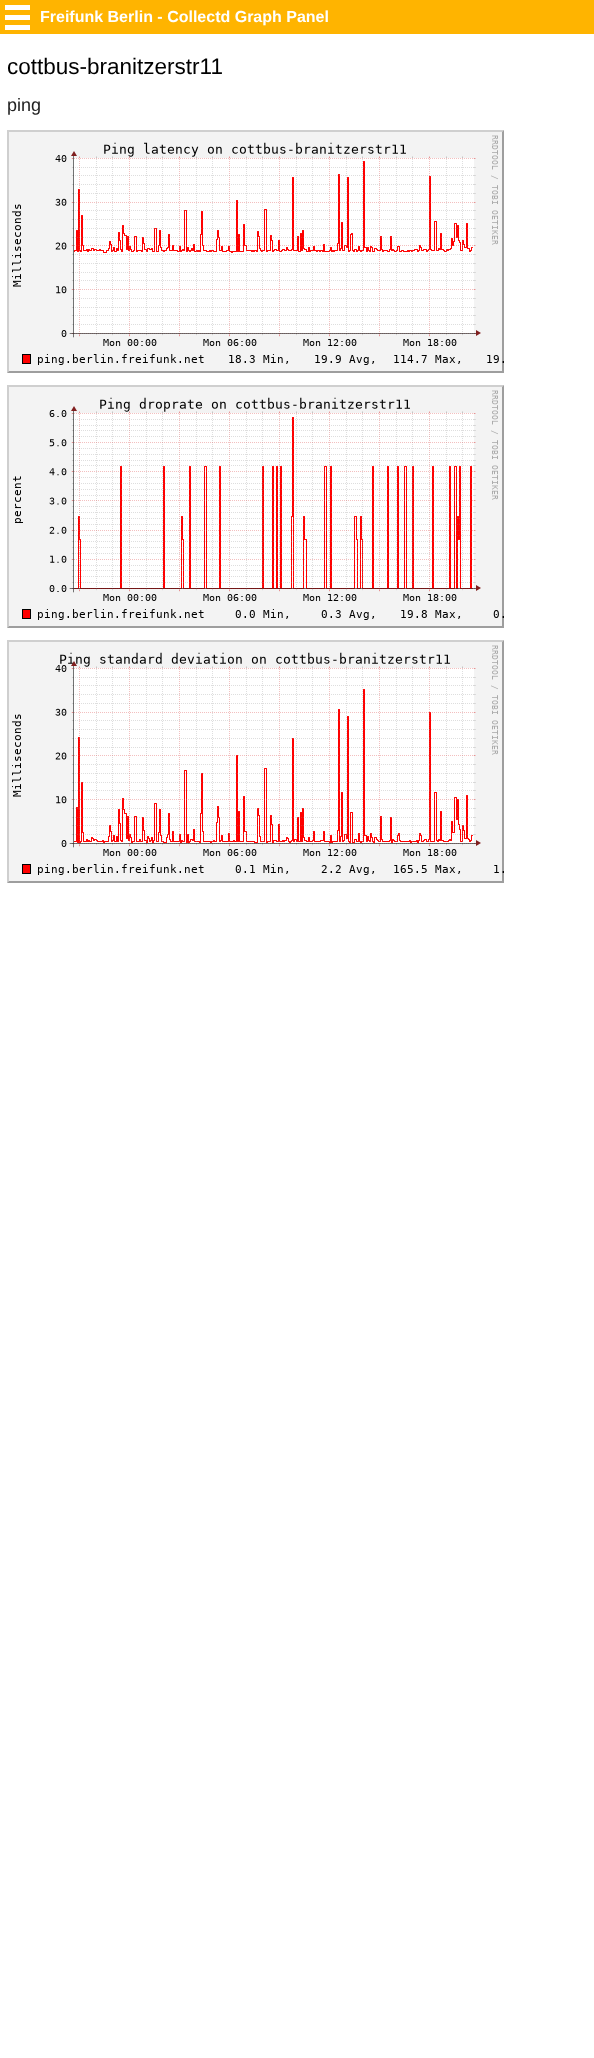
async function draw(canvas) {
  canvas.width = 594
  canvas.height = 2058
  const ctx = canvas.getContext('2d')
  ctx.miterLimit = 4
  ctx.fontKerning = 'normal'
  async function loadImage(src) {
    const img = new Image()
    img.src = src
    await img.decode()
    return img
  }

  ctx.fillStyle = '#fff'
  ctx.fillRect(0, 0, 594, 2058)
  ctx.fillStyle = '#ffb400'
  ctx.fillRect(0, 0, 594, 34)
  ctx.font = 'bold 16px Liberation Sans'
  ctx.fillStyle = '#fff'
  ctx.fillText('Freifunk Berlin - Collectd Graph Panel', 40, 22)
  ctx.fillRect(5, 5, 25, 5)
  ctx.fillRect(5, 25, 25, 5)
  ctx.fillRect(5, 15, 25, 5)
  ctx.font = '22.5px Liberation Sans'
  ctx.fillStyle = '#000'
  ctx.fillText('cottbus-branitzerstr11', 7, 74)
  ctx.font = '18px Liberation Sans'
  ctx.fillStyle = '#222'
  ctx.fillText('ping', 7, 111)
  ctx.drawImage(await loadImage('image0.png'), 7, 130, 497, 243)
  ctx.drawImage(await loadImage('image1.png'), 7, 385, 497, 243)
  ctx.drawImage(await loadImage('image2.png'), 7, 640, 497, 243)
}

draw(document.querySelector('canvas'))
